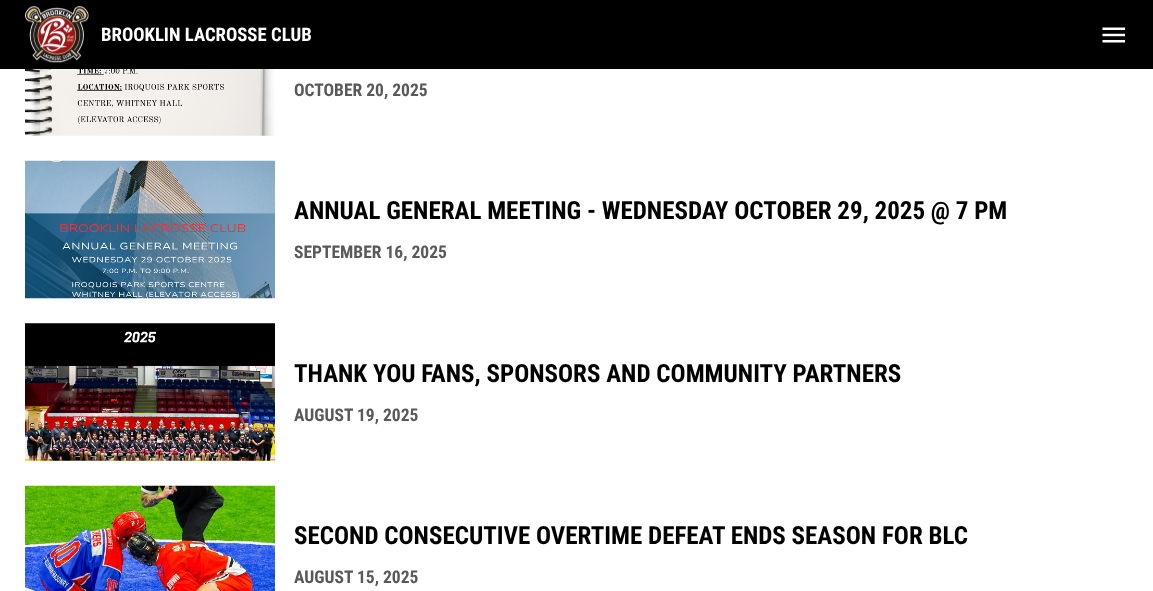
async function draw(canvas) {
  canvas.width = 1153
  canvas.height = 591
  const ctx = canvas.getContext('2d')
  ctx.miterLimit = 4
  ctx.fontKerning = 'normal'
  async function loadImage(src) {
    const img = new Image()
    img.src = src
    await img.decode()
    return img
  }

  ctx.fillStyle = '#fff'
  ctx.fillRect(0, 0, 1153, 591)
  ctx.fillStyle = '#000'
  ctx.fillRect(0, 0, 1153, 69)
  ctx.drawImage(await loadImage('image0.png'), 25, 6, 64, 57)
  ctx.font = 'bold 18.75px Roboto Condensed'
  ctx.fillStyle = '#fff'
  ctx.fillText('BROOKLIN LACROSSE CLUB', 101, 41)
  ctx.drawImage(await loadImage('image1.png'), 1102, 27, 23, 16)
  ctx.drawImage(await loadImage('image2.png'), 25, 69, 250, 67)
  ctx.font = 'bold 17.5px Roboto Condensed'
  ctx.fillStyle = '#595959'
  ctx.fillText('OCTOBER 20, 2025', 294, 96)
  ctx.drawImage(await loadImage('image3.png'), 25, 160, 250, 139)
  ctx.font = 'bold 25px Roboto Condensed'
  ctx.fillStyle = '#000'
  ctx.fillText('ANNUAL GENERAL MEETING - WEDNESDAY OCTOBER 29, 2025 @ 7 PM', 294, 219)
  ctx.font = 'bold 17.5px Roboto Condensed'
  ctx.fillStyle = '#595959'
  ctx.fillText('SEPTEMBER 16, 2025', 294, 258)
  ctx.drawImage(await loadImage('image4.png'), 25, 323, 250, 138)
  ctx.font = 'bold 25px Roboto Condensed'
  ctx.fillStyle = '#000'
  ctx.fillText('THANK YOU FANS, SPONSORS AND COMMUNITY PARTNERS', 294, 382)
  ctx.font = 'bold 17.5px Roboto Condensed'
  ctx.fillStyle = '#595959'
  ctx.fillText('AUGUST 19, 2025', 294, 421)
  ctx.drawImage(await loadImage('image5.png'), 25, 485, 250, 106)
  ctx.font = 'bold 25px Roboto Condensed'
  ctx.fillStyle = '#000'
  ctx.fillText('SECOND CONSECUTIVE OVERTIME DEFEAT ENDS SEASON FOR BLC', 294, 544)
  ctx.font = 'bold 17.5px Roboto Condensed'
  ctx.fillStyle = '#595959'
  ctx.fillText('AUGUST 15, 2025', 294, 583)
}

draw(document.querySelector('canvas'))
